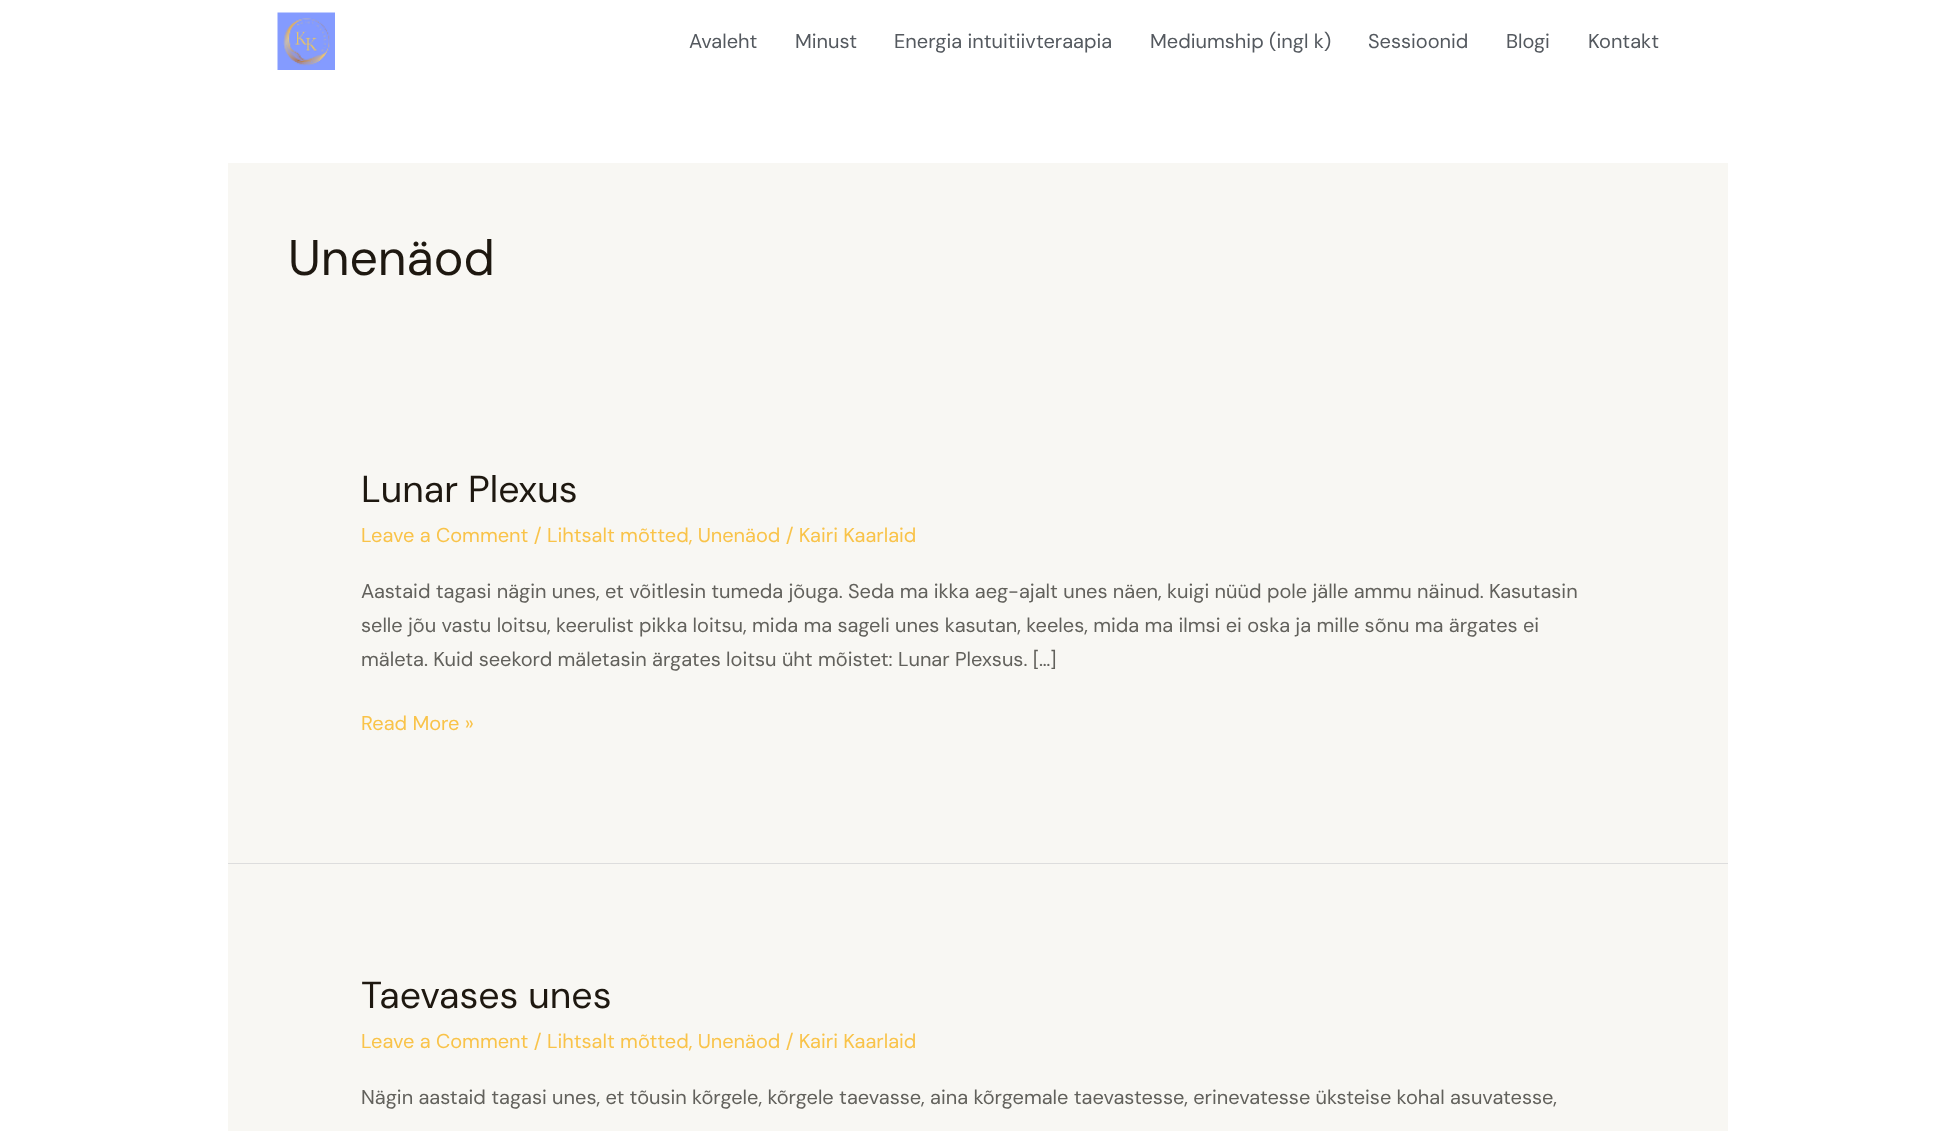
async function draw(canvas) {
  canvas.width = 1954
  canvas.height = 1131
  const ctx = canvas.getContext('2d')
  ctx.miterLimit = 4
  ctx.fontKerning = 'normal'
  async function loadImage(src) {
    const img = new Image()
    img.src = src
    await img.decode()
    return img
  }

  ctx.fillStyle = '#fff'
  ctx.fillRect(0, 0, 1954, 1131)
  ctx.drawImage(await loadImage('image0.png'), 277, 12, 58, 58)
  ctx.font = '20px DM Sans'
  ctx.fillStyle = '#54595f'
  ctx.fillText('Avaleht', 689, 48)
  ctx.fillText('Minust', 795, 48)
  ctx.fillText('Energia intuitiivteraapia', 894, 48)
  ctx.fillText('Mediumship (ingl k)', 1150, 48)
  ctx.fillText('Sessioonid', 1368, 48)
  ctx.fillText('Blogi', 1506, 48)
  ctx.fillText('Kontakt', 1588, 48)
  ctx.fillStyle = '#f8f7f3'
  ctx.fillRect(228, 163, 1500, 700)
  ctx.font = '50px DM Sans'
  ctx.fillStyle = '#1e1810'
  ctx.fillText('Unenäod', 288, 275)
  ctx.fillStyle = '#ddd'
  ctx.fillRect(228, 863, 1500, 1)
  ctx.font = '37.5px DM Sans'
  ctx.fillStyle = '#1e1810'
  ctx.fillText('Lunar Plexus', 361, 502)
  ctx.font = '20px DM Sans'
  ctx.fillStyle = '#f9c349'
  ctx.fillText('Leave a Comment / Lihtsalt mõtted, Unenäod / Kairi Kaarlaid', 361, 542)
  ctx.fillStyle = '#62615c'
  ctx.fillText('Aastaid tagasi nägin unes, et võitlesin tumeda jõuga. Seda ma ikka aeg-ajalt unes näen, kuigi nüüd pole jälle ammu näinud. Kasutasin', 361, 598)
  ctx.fillText('selle jõu vastu loitsu, keerulist pikka loitsu, mida ma sageli unes kasutan, keeles, mida ma ilmsi ei oska ja mille sõnu ma ärgates ei', 361, 632)
  ctx.fillText('mäleta. Kuid seekord mäletasin ärgates loitsu üht mõistet: Lunar Plexsus. […]', 361, 666)
  ctx.fillStyle = '#f9c349'
  ctx.fillText('Read More »', 361, 730)
  ctx.fillStyle = '#f8f7f3'
  ctx.fillRect(228, 864, 1500, 267)
  ctx.font = '37.5px DM Sans'
  ctx.fillStyle = '#1e1810'
  ctx.fillText('Taevases unes', 361, 1008)
  ctx.font = '20px DM Sans'
  ctx.fillStyle = '#f9c349'
  ctx.fillText('Leave a Comment / Lihtsalt mõtted, Unenäod / Kairi Kaarlaid', 361, 1048)
  ctx.fillStyle = '#62615c'
  ctx.fillText('Nägin aastaid tagasi unes, et tõusin kõrgele, kõrgele taevasse, aina kõrgemale taevastesse, erinevatesse üksteise kohal asuvatesse,', 361, 1104)
}

draw(document.querySelector('canvas'))
